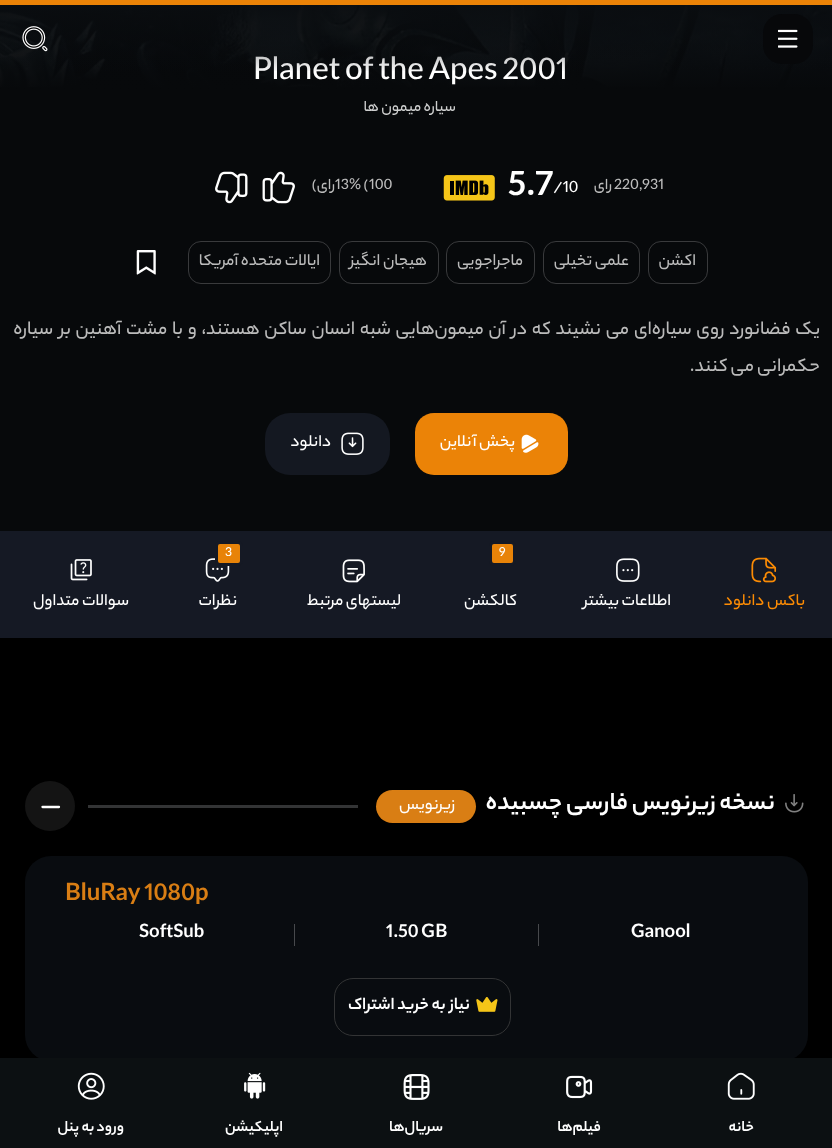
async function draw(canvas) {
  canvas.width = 832
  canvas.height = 1148
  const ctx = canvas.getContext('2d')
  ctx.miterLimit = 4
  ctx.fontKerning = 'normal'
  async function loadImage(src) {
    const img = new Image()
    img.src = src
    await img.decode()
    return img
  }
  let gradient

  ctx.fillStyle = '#000'
  ctx.fillRect(0, 0, 832, 1148)
  ctx.fillStyle = '#eb8307'
  ctx.fillRect(0, 0, 832, 5)
  ctx.drawImage(await loadImage('image2.png'), 0, 5, 832, 82)
  gradient = ctx.createLinearGradient(416, 531, 416, -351)
  gradient.addColorStop(0.5, '#07090b')
  gradient.addColorStop(1, '#07090b00')
  ctx.fillStyle = gradient
  ctx.fillRect(0, 5, 832, 526)
  ctx.font = '500 33.75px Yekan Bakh'
  ctx.fillStyle = '#fff'
  ctx.fillText('Planet of the Apes 2001', 253, 79)
  gradient = ctx.createLinearGradient(416, 0, 416, 73)
  gradient.addColorStop(0, '#0a0d10')
  gradient.addColorStop(1, '#0a0d1000')
  ctx.fillStyle = gradient
  ctx.fillRect(0, 5, 832, 66)
  ctx.fillStyle = '#07080a'
  ctx.beginPath()
  ctx.roundRect(763, 14, 50, 50, 19)
  ctx.fill()
  ctx.drawImage(await loadImage('image0.png'), 778, 29, 20, 19)
  ctx.drawImage(await loadImage('image1.png'), 22, 26, 26, 26)
  ctx.direction = 'rtl'
  ctx.font = '500 16.25px Yekan Bakh'
  ctx.fillStyle = '#cdcece'
  ctx.fillText('سیاره میمون ها', 456, 111)
  ctx.direction = 'ltr'
  ctx.fillStyle = '#bbb'
  ctx.fillText('220,931', 614, 189)
  ctx.direction = 'rtl'
  ctx.fillText('رای', 612, 189)
  ctx.direction = 'ltr'
  ctx.font = '500 17.5px Yekan Bakh'
  ctx.fillStyle = '#fff'
  ctx.fillText('/10', 553, 192)
  ctx.font = 'bold 38px Yekan Bakh'
  ctx.fillText('5.7', 508, 195)
  ctx.drawImage(await loadImage('image3.png'), 443, 175, 52, 26)
  ctx.font = '500 16.25px Yekan Bakh'
  ctx.fillStyle = '#bbb'
  ctx.fillText('100', 369, 189)
  ctx.fillText('% (', 349, 189)
  ctx.fillText('13', 335, 189)
  ctx.direction = 'rtl'
  ctx.fillText('رای)', 335, 189)
  ctx.drawImage(await loadImage('image4.png'), 262, 171, 33, 33)
  ctx.drawImage(await loadImage('image5.png'), 215, 171, 33, 33)
  ctx.beginPath()
  ctx.roundRect(648.5, 241.5, 59, 42, 12.5)
  ctx.strokeStyle = '#393a3c'
  ctx.stroke()
  ctx.font = '500 17.5px Yekan Bakh'
  ctx.fillText('اکشن', 696, 265)
  ctx.beginPath()
  ctx.roundRect(543.5, 241.5, 96, 42, 12.5)
  ctx.stroke()
  ctx.fillText('علمی تخیلی', 629, 265)
  ctx.beginPath()
  ctx.roundRect(446.5, 241.5, 88, 42, 12.5)
  ctx.stroke()
  ctx.fillText('ماجراجویی', 523, 265)
  ctx.beginPath()
  ctx.roundRect(339.5, 241.5, 99, 42, 12.5)
  ctx.stroke()
  ctx.fillText('هیجان انگیز', 427, 265)
  ctx.beginPath()
  ctx.roundRect(188.5, 241.5, 142, 42, 12.5)
  ctx.stroke()
  ctx.fillText('ایالات متحده آمریکا', 320, 265)
  ctx.drawImage(await loadImage('image6.png'), 136, 250, 20, 25)
  ctx.wordSpacing = '1.8px'
  ctx.font = '500 20px Yekan Bakh'
  ctx.fillText('یک فضانورد روی سیاره‌ای می نشیند که در آن میمون‌هایی شبه انسان ساکن هستند، و با مشت آهنین بر سیاره', 820, 334)
  ctx.wordSpacing = '0px'
  ctx.fillText('حکمرانی می کنند.', 820, 371)
  ctx.fillStyle = '#eb8307'
  ctx.beginPath()
  ctx.roundRect(415, 413, 153, 62, 19)
  ctx.fill()
  ctx.drawImage(await loadImage('image7.png'), 521, 434, 18, 19)
  ctx.font = '500 17.5px Yekan Bakh'
  ctx.fillStyle = '#fff'
  ctx.fillText('پخش آنلاین', 515, 446)
  ctx.fillStyle = '#141821'
  ctx.beginPath()
  ctx.roundRect(265, 413, 125, 62, 25)
  ctx.fill()
  ctx.drawImage(await loadImage('image8.png'), 341, 432, 23, 23)
  ctx.fillStyle = '#fff'
  ctx.fillText('دانلود', 331, 446)
  ctx.fillStyle = '#151924'
  ctx.fillRect(0, 531, 832, 107)
  ctx.drawImage(await loadImage('image9.png'), 751, 557, 26, 26)
  ctx.fillStyle = '#fb8b04'
  ctx.fillText('باکس دانلود', 805, 605)
  ctx.drawImage(await loadImage('image10.png'), 616, 558, 24, 24)
  ctx.fillStyle = '#fff'
  ctx.fillText('اطلاعات بیشتر', 671, 605)
  ctx.fillStyle = '#e88308'
  ctx.beginPath()
  ctx.roundRect(490.5, 542.5, 24, 22, 3.5)
  ctx.fill()
  ctx.strokeStyle = '#151924'
  ctx.lineWidth = 3
  ctx.stroke()
  ctx.direction = 'ltr'
  ctx.font = '500 14px Yekan Bakh'
  ctx.fillStyle = '#fff'
  ctx.fillText('9', 499, 556)
  ctx.direction = 'rtl'
  ctx.font = '500 17.5px Yekan Bakh'
  ctx.fillText('کالکشن', 517, 605)
  ctx.drawImage(await loadImage('image11.png'), 342, 559, 23, 24)
  ctx.fillText('لیستهای مرتبط', 401, 605)
  ctx.drawImage(await loadImage('image12.png'), 205, 558, 25, 24)
  ctx.fillStyle = '#e88308'
  ctx.beginPath()
  ctx.roundRect(216.5, 542.5, 25, 22, 3.5)
  ctx.fill()
  ctx.stroke()
  ctx.direction = 'ltr'
  ctx.font = '500 14px Yekan Bakh'
  ctx.fillStyle = '#fff'
  ctx.fillText('3', 225, 556)
  ctx.direction = 'rtl'
  ctx.font = '500 17.5px Yekan Bakh'
  ctx.fillText('نظرات', 237, 605)
  ctx.drawImage(await loadImage('image13.png'), 70, 559, 22, 22)
  ctx.fillText('سوالات متداول', 129, 605)
  ctx.drawImage(await loadImage('image14.png'), 785, 794, 19, 19)
  ctx.font = 'bold 26px Yekan Bakh'
  ctx.fillText('نسخه زیرنویس فارسی چسبیده', 775, 809)
  ctx.fillStyle = '#d97e14'
  ctx.beginPath()
  ctx.roundRect(376, 790, 100, 33, 16.5)
  ctx.fill()
  ctx.font = '500 17.5px Yekan Bakh'
  ctx.fillStyle = '#fff'
  ctx.fillText('زیرنویس', 455, 809)
  ctx.fillStyle = '#333435'
  ctx.fillRect(88, 805, 270, 3)
  ctx.fillStyle = '#141414'
  ctx.beginPath()
  ctx.arc(50, 806, 25, 0, 2 * Math.PI)
  ctx.fill()
  ctx.beginPath()
  ctx.moveTo(42.5, 807)
  ctx.lineTo(59, 807)
  ctx.strokeStyle = '#fff'
  ctx.lineWidth = 2.3
  ctx.lineCap = 'round'
  ctx.lineJoin = 'round'
  ctx.stroke()
  ctx.fillStyle = '#090c10'
  ctx.beginPath()
  ctx.roundRect(25, 856, 783, 205, 26)
  ctx.fill()
  ctx.direction = 'ltr'
  ctx.font = 'bold 26px Yekan Bakh'
  ctx.fillStyle = '#d97e14'
  ctx.fillText('BluRay 1080p', 65, 900)
  ctx.font = 'bold 20px Yekan Bakh'
  ctx.fillStyle = '#fff'
  ctx.fillText('Ganool', 631, 937)
  ctx.fillStyle = '#47494c'
  ctx.fillRect(538, 924, 1, 22)
  ctx.fillStyle = '#fff'
  ctx.fillText('1.50 GB', 386, 937)
  ctx.fillStyle = '#47494c'
  ctx.fillRect(294, 924, 1, 22)
  ctx.fillStyle = '#fff'
  ctx.fillText('SoftSub', 139, 937)
  ctx.beginPath()
  ctx.roundRect(334.5, 978.5, 176, 57, 18.5)
  ctx.strokeStyle = '#333435'
  ctx.lineWidth = 1
  ctx.lineJoin = 'miter'
  ctx.stroke()
  ctx.drawImage(await loadImage('image15.png'), 476, 997, 22, 15)
  ctx.direction = 'rtl'
  ctx.font = 'bold 18px Yekan Bakh'
  ctx.fillText('نیاز به خرید اشتراک', 470, 1009)
  ctx.fillStyle = '#0c1012'
  ctx.fillRect(0, 1058, 832, 90)
  ctx.drawImage(await loadImage('image16.png'), 727, 1072, 28, 28)
  ctx.font = 'bold 16.25px Yekan Bakh'
  ctx.fillStyle = '#fff'
  ctx.fillText('خانه', 754, 1131)
  ctx.drawImage(await loadImage('image17.png'), 566, 1075, 27, 24)
  ctx.fillText('فیلم‌ها', 601, 1131)
  ctx.drawImage(await loadImage('image18.png'), 403, 1074, 27, 26)
  ctx.fillText('سریال‌ها', 443, 1131)
  ctx.drawImage(await loadImage('image19.png'), 244, 1072, 22, 27)
  ctx.fillText('اپلیکیشن', 283, 1131)
  ctx.drawImage(await loadImage('image20.png'), 77, 1072, 28, 28)
  ctx.fillText('ورود به پنل', 124, 1131)
}

draw(document.querySelector('canvas'))
